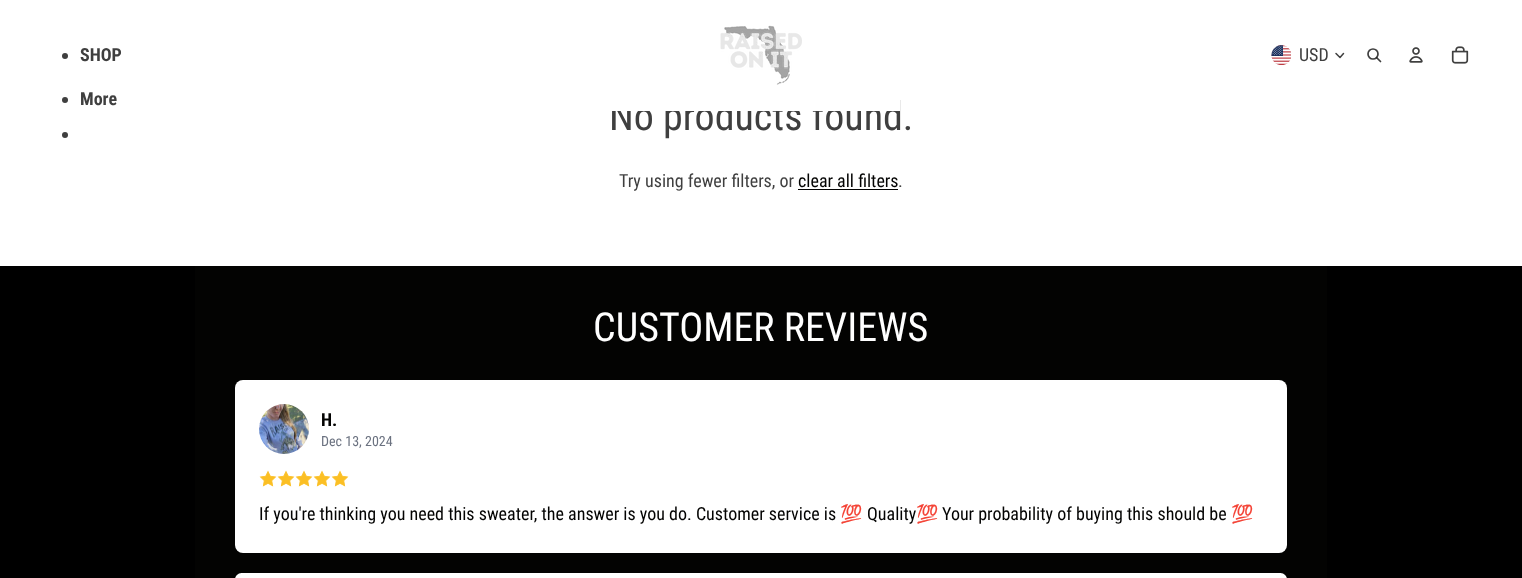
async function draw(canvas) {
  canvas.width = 1522
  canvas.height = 578
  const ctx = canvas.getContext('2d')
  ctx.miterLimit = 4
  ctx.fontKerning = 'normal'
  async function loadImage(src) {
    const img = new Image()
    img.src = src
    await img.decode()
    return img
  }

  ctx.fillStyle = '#fff'
  ctx.fillRect(0, 0, 1522, 578)
  ctx.font = '40px Roboto Condensed'
  ctx.fillStyle = '#3f3f3f'
  ctx.fillText('No products found.', 609, 130)
  ctx.fillStyle = '#fff'
  ctx.fillRect(611, 99, 289, 12)
  ctx.fillStyle = '#3f3f3f'
  ctx.beginPath()
  ctx.arc(65, 56, 3, 0, 2 * Math.PI)
  ctx.fill()
  ctx.font = 'bold 18px Roboto Condensed'
  ctx.fillText('SHOP', 80, 61)
  ctx.beginPath()
  ctx.arc(65, 100, 3, 0, 2 * Math.PI)
  ctx.fill()
  ctx.fillText('More', 80, 105)
  ctx.beginPath()
  ctx.arc(65, 135, 3, 0, 2 * Math.PI)
  ctx.fill()
  ctx.drawImage(await loadImage('image0.png'), 720, 25, 82, 60)
  ctx.drawImage(await loadImage('image1.png'), 1271, 45, 20, 20)
  ctx.font = '18px Roboto Condensed'
  ctx.fillText('USD', 1299, 61)
  ctx.beginPath()
  ctx.moveTo(1343.5, 53.5)
  ctx.lineTo(1340, 57.5)
  ctx.lineTo(1336, 53.5)
  ctx.strokeStyle = '#3f3f3f'
  ctx.lineWidth = 1.5
  ctx.lineCap = 'round'
  ctx.lineJoin = 'round'
  ctx.stroke()
  ctx.beginPath()
  ctx.arc(1373, 54, 5, 0, 2 * Math.PI)
  ctx.lineWidth = 1.7
  ctx.stroke()
  ctx.beginPath()
  ctx.moveTo(1377, 58)
  ctx.lineTo(1380.5, 61.5)
  ctx.strokeStyle = '#030302c2'
  ctx.stroke()
  ctx.drawImage(await loadImage('image2.png'), 1409, 47, 14, 16)
  ctx.drawImage(await loadImage('image3.png'), 1451, 46, 18, 18)
  ctx.fillText('Try using fewer filters, or', 619, 187)
  ctx.fillStyle = '#030302'
  ctx.fillText('clear all filters', 798, 187)
  ctx.fillRect(798, 189, 100, 1)
  ctx.fillStyle = '#3f3f3f'
  ctx.fillText('.', 898, 187)
  ctx.fillStyle = '#000'
  ctx.fillRect(0, 266, 1522, 312)
  ctx.fillStyle = '#030302'
  ctx.fillRect(195, 266, 1132, 312)
  ctx.font = '40px Roboto Condensed'
  ctx.fillStyle = '#fff'
  ctx.fillText('CUSTOMER REVIEWS', 593, 341)
  ctx.beginPath()
  ctx.roundRect(235, 380, 1052, 173, 8)
  ctx.fill()
  ctx.drawImage(await loadImage('image4.png'), 259, 404, 50, 50)
  ctx.font = 'bold 18px Roboto Condensed'
  ctx.fillStyle = '#030302'
  ctx.fillText('H.', 321, 426)
  ctx.font = '14px Roboto Condensed'
  ctx.fillStyle = '#6b7280'
  ctx.fillText('Dec 13, 2024', 321, 446)
  ctx.drawImage(await loadImage('image5.png'), 259, 470, 18, 17)
  ctx.drawImage(await loadImage('image5.png'), 277, 470, 18, 17)
  ctx.drawImage(await loadImage('image5.png'), 295, 470, 18, 17)
  ctx.drawImage(await loadImage('image5.png'), 313, 470, 18, 17)
  ctx.drawImage(await loadImage('image5.png'), 331, 470, 18, 17)
  ctx.font = '18px Roboto Condensed'
  ctx.fillStyle = '#030302'
  ctx.fillText('If you\'re thinking you need this sweater, the answer is you do. Customer service is', 259, 520)
  ctx.font = '18px Noto Color Emoji'
  ctx.fillText('💯', 840, 520)
  ctx.font = '18px Roboto Condensed'
  ctx.fillText('Quality', 867, 520)
  ctx.font = '18px Noto Color Emoji'
  ctx.fillText('💯', 916, 520)
  ctx.font = '18px Roboto Condensed'
  ctx.fillText('Your probability of buying this should be', 942, 520)
  ctx.font = '18px Noto Color Emoji'
  ctx.fillText('💯', 1231, 520)
  ctx.fillStyle = '#fff'
  ctx.beginPath()
  ctx.roundRect(235, 573, 1052, 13, 8)
  ctx.fill()
}

draw(document.querySelector('canvas'))
